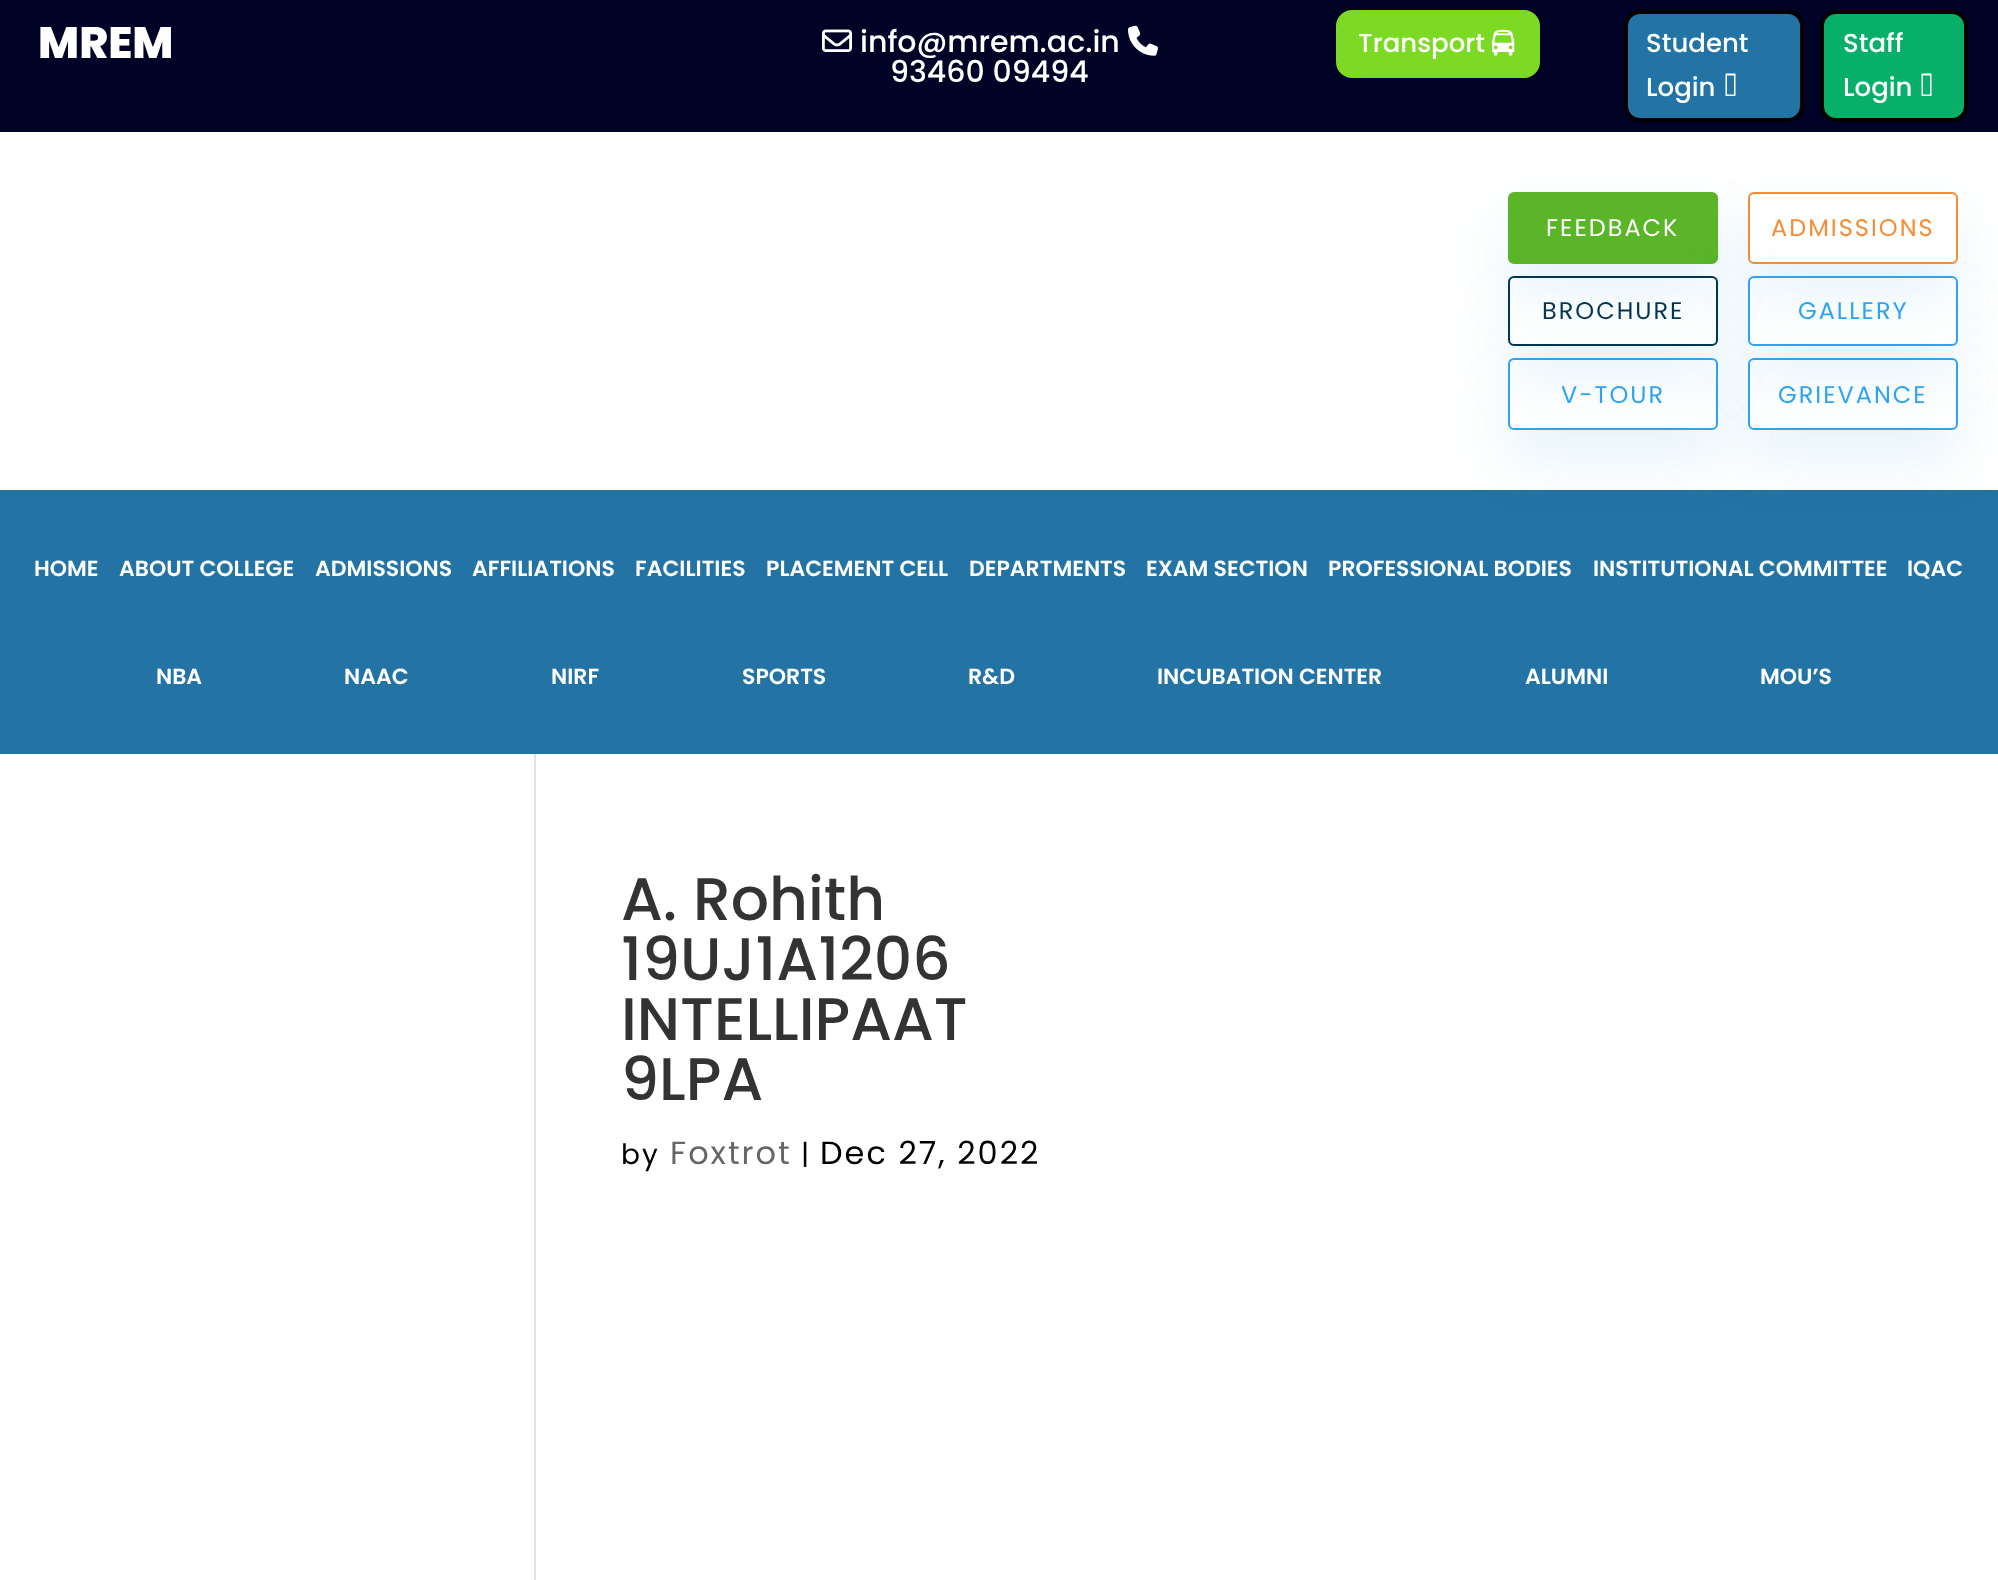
async function draw(canvas) {
  canvas.width = 1998
  canvas.height = 1580
  const ctx = canvas.getContext('2d')
  ctx.miterLimit = 4
  ctx.fontKerning = 'normal'
  async function loadImage(src) {
    const img = new Image()
    img.src = src
    await img.decode()
    return img
  }

  ctx.fillStyle = '#fff'
  ctx.fillRect(0, 0, 1998, 1580)
  ctx.fillStyle = '#000326'
  ctx.fillRect(0, 0, 1998, 132)
  ctx.font = '800 44px Poppins'
  ctx.fillStyle = '#fff'
  ctx.fillText('MREM', 38, 58)
  ctx.drawImage(await loadImage('image0.png'), 822, 29, 30, 23)
  ctx.font = '500 30px Poppins'
  ctx.fillText('info@mrem.ac.in', 860, 52)
  ctx.drawImage(await loadImage('image1.png'), 1128, 25, 30, 31)
  ctx.fillText('93460 09494', 890, 82)
  ctx.fillStyle = '#7cda24'
  ctx.beginPath()
  ctx.roundRect(1338, 12, 200, 64, 14)
  ctx.fill()
  ctx.strokeStyle = '#7cda24'
  ctx.lineWidth = 4
  ctx.stroke()
  ctx.font = '500 26px Poppins'
  ctx.fillStyle = '#fff'
  ctx.fillText('Transport', 1358, 52)
  ctx.drawImage(await loadImage('image2.png'), 1492, 29, 23, 27)
  ctx.fillStyle = '#2373a4'
  ctx.beginPath()
  ctx.roundRect(1626, 12, 176, 108, 14)
  ctx.fill()
  ctx.strokeStyle = '#000'
  ctx.stroke()
  ctx.fillStyle = '#fff'
  ctx.fillText('Student', 1646, 52)
  ctx.fillText('Login', 1646, 96)
  ctx.beginPath()
  ctx.moveTo(1727, 94.5)
  ctx.lineTo(1727, 75.5)
  ctx.lineTo(1734, 75.5)
  ctx.lineTo(1734, 94.5)
  ctx.closePath()
  ctx.moveTo(1725.5, 96)
  ctx.lineTo(1735.5, 96)
  ctx.lineTo(1735.5, 73.5)
  ctx.lineTo(1725.5, 73.5)
  ctx.closePath()
  ctx.fill()
  ctx.fillStyle = '#07af69'
  ctx.beginPath()
  ctx.roundRect(1822, 12, 144, 108, 14)
  ctx.fill()
  ctx.stroke()
  ctx.fillStyle = '#fff'
  ctx.fillText('Staff', 1843, 52)
  ctx.fillText('Login', 1843, 96)
  ctx.beginPath()
  ctx.moveTo(1923, 94.5)
  ctx.lineTo(1923, 75.5)
  ctx.lineTo(1930, 75.5)
  ctx.lineTo(1930, 94.5)
  ctx.closePath()
  ctx.moveTo(1921.5, 96)
  ctx.lineTo(1931.5, 96)
  ctx.lineTo(1931.5, 73.5)
  ctx.lineTo(1921.5, 73.5)
  ctx.closePath()
  ctx.fill()
  ctx.fillStyle = '#0085ca1a'
  ctx.filter = 'blur(30px)'
  ctx.beginPath()
  ctx.roundRect(1508, 222, 210, 72, 6)
  ctx.fill()
  ctx.filter = 'none'
  ctx.fillStyle = '#5bb529'
  ctx.beginPath()
  ctx.roundRect(1509, 193, 208, 70, 5)
  ctx.fill()
  ctx.strokeStyle = '#5bb529'
  ctx.lineWidth = 2
  ctx.stroke()
  ctx.letterSpacing = '2px'
  ctx.font = '24px Poppins'
  ctx.fillStyle = '#fff'
  ctx.fillText('FEEDBACK', 1546, 236)
  ctx.save()
  ctx.beginPath()
  ctx.moveTo(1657, 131)
  ctx.lineTo(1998, 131)
  ctx.lineTo(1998, 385)
  ctx.lineTo(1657, 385)
  ctx.closePath()
  ctx.moveTo(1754, 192)
  ctx.lineTo(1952, 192)
  ctx.bezierCurveTo(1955.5, 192, 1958, 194.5, 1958, 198)
  ctx.lineTo(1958, 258)
  ctx.bezierCurveTo(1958, 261.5, 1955.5, 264, 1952, 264)
  ctx.lineTo(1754, 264)
  ctx.bezierCurveTo(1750.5, 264, 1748, 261.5, 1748, 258)
  ctx.lineTo(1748, 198)
  ctx.bezierCurveTo(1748, 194.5, 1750.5, 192, 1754, 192)
  ctx.closePath()
  ctx.clip('evenodd')
  ctx.fillStyle = '#0085ca1a'
  ctx.filter = 'blur(30px)'
  ctx.beginPath()
  ctx.roundRect(1748, 222, 210, 72, 6)
  ctx.fill()
  ctx.filter = 'none'
  ctx.restore()
  ctx.beginPath()
  ctx.roundRect(1749, 193, 208, 70, 5)
  ctx.strokeStyle = '#f78c34'
  ctx.stroke()
  ctx.fillStyle = '#f78c34'
  ctx.fillText('ADMISSIONS', 1771, 236)
  ctx.save()
  ctx.beginPath()
  ctx.moveTo(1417, 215)
  ctx.lineTo(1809, 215)
  ctx.lineTo(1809, 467)
  ctx.lineTo(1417, 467)
  ctx.closePath()
  ctx.moveTo(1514, 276)
  ctx.lineTo(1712, 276)
  ctx.bezierCurveTo(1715.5, 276, 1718, 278.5, 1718, 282)
  ctx.lineTo(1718, 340)
  ctx.bezierCurveTo(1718, 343.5, 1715.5, 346, 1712, 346)
  ctx.lineTo(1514, 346)
  ctx.bezierCurveTo(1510.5, 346, 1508, 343.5, 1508, 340)
  ctx.lineTo(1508, 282)
  ctx.bezierCurveTo(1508, 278.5, 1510.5, 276, 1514, 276)
  ctx.closePath()
  ctx.clip('evenodd')
  ctx.fillStyle = '#0085ca1a'
  ctx.filter = 'blur(30px)'
  ctx.beginPath()
  ctx.roundRect(1508, 306, 210, 70, 6)
  ctx.fill()
  ctx.filter = 'none'
  ctx.restore()
  ctx.beginPath()
  ctx.roundRect(1509, 277, 208, 68, 5)
  ctx.strokeStyle = '#043552'
  ctx.stroke()
  ctx.fillStyle = '#043552'
  ctx.fillText('BROCHURE', 1542, 319)
  ctx.save()
  ctx.beginPath()
  ctx.moveTo(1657, 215)
  ctx.lineTo(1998, 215)
  ctx.lineTo(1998, 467)
  ctx.lineTo(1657, 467)
  ctx.closePath()
  ctx.moveTo(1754, 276)
  ctx.lineTo(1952, 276)
  ctx.bezierCurveTo(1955.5, 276, 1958, 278.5, 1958, 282)
  ctx.lineTo(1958, 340)
  ctx.bezierCurveTo(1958, 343.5, 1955.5, 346, 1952, 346)
  ctx.lineTo(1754, 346)
  ctx.bezierCurveTo(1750.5, 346, 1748, 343.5, 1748, 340)
  ctx.lineTo(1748, 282)
  ctx.bezierCurveTo(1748, 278.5, 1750.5, 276, 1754, 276)
  ctx.closePath()
  ctx.clip('evenodd')
  ctx.fillStyle = '#0085ca1a'
  ctx.filter = 'blur(30px)'
  ctx.beginPath()
  ctx.roundRect(1748, 306, 210, 70, 6)
  ctx.fill()
  ctx.filter = 'none'
  ctx.restore()
  ctx.beginPath()
  ctx.roundRect(1749, 277, 208, 68, 5)
  ctx.strokeStyle = '#2ea3f2'
  ctx.stroke()
  ctx.fillStyle = '#2ea3f2'
  ctx.fillText('GALLERY', 1798, 319)
  ctx.fillStyle = '#2373a4'
  ctx.fillRect(0, 490, 1998, 264)
  ctx.save()
  ctx.beginPath()
  ctx.moveTo(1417, 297)
  ctx.lineTo(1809, 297)
  ctx.lineTo(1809, 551)
  ctx.lineTo(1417, 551)
  ctx.closePath()
  ctx.moveTo(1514, 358)
  ctx.lineTo(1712, 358)
  ctx.bezierCurveTo(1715.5, 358, 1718, 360.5, 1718, 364)
  ctx.lineTo(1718, 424)
  ctx.bezierCurveTo(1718, 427.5, 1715.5, 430, 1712, 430)
  ctx.lineTo(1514, 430)
  ctx.bezierCurveTo(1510.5, 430, 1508, 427.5, 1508, 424)
  ctx.lineTo(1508, 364)
  ctx.bezierCurveTo(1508, 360.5, 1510.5, 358, 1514, 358)
  ctx.closePath()
  ctx.clip('evenodd')
  ctx.fillStyle = '#0085ca1a'
  ctx.filter = 'blur(30px)'
  ctx.beginPath()
  ctx.roundRect(1508, 388, 210, 72, 6)
  ctx.fill()
  ctx.filter = 'none'
  ctx.restore()
  ctx.beginPath()
  ctx.roundRect(1509, 359, 208, 70, 5)
  ctx.stroke()
  ctx.fillStyle = '#2ea3f2'
  ctx.fillText('V-TOUR', 1561, 403)
  ctx.save()
  ctx.beginPath()
  ctx.moveTo(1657, 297)
  ctx.lineTo(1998, 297)
  ctx.lineTo(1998, 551)
  ctx.lineTo(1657, 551)
  ctx.closePath()
  ctx.moveTo(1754, 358)
  ctx.lineTo(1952, 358)
  ctx.bezierCurveTo(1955.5, 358, 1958, 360.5, 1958, 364)
  ctx.lineTo(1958, 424)
  ctx.bezierCurveTo(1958, 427.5, 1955.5, 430, 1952, 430)
  ctx.lineTo(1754, 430)
  ctx.bezierCurveTo(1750.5, 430, 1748, 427.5, 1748, 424)
  ctx.lineTo(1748, 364)
  ctx.bezierCurveTo(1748, 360.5, 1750.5, 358, 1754, 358)
  ctx.closePath()
  ctx.clip('evenodd')
  ctx.fillStyle = '#0085ca1a'
  ctx.filter = 'blur(30px)'
  ctx.beginPath()
  ctx.roundRect(1748, 388, 210, 72, 6)
  ctx.fill()
  ctx.filter = 'none'
  ctx.restore()
  ctx.beginPath()
  ctx.roundRect(1749, 359, 208, 70, 5)
  ctx.stroke()
  ctx.fillText('GRIEVANCE', 1778, 403)
  ctx.letterSpacing = '0px'
  ctx.font = '600 22px Poppins'
  ctx.fillStyle = '#fff'
  ctx.fillText('HOME', 34, 576)
  ctx.fillText('ABOUT COLLEGE', 119, 576)
  ctx.fillText('ADMISSIONS', 315, 576)
  ctx.fillText('AFFILIATIONS', 472, 576)
  ctx.fillText('FACILITIES', 635, 576)
  ctx.fillText('PLACEMENT CELL', 766, 576)
  ctx.fillText('DEPARTMENTS', 969, 576)
  ctx.fillText('EXAM SECTION', 1146, 576)
  ctx.fillText('PROFESSIONAL BODIES', 1328, 576)
  ctx.fillText('INSTITUTIONAL COMMITTEE', 1593, 576)
  ctx.fillText('IQAC', 1907, 576)
  ctx.fillText('NBA', 156, 684)
  ctx.fillText('NAAC', 344, 684)
  ctx.fillText('NIRF', 551, 684)
  ctx.fillText('SPORTS', 742, 684)
  ctx.fillText('R&D', 968, 684)
  ctx.fillText('INCUBATION CENTER', 1157, 684)
  ctx.fillText('ALUMNI', 1525, 684)
  ctx.fillText('MOU’S', 1760, 684)
  ctx.fillStyle = '#e2e2e2'
  ctx.fillRect(534, 754, 2, 826)
  ctx.font = '500 60px Poppins'
  ctx.fillStyle = '#333'
  ctx.fillText('A. Rohith', 621, 920)
  ctx.fillText('19UJ1A1206', 621, 980)
  ctx.fillText('INTELLIPAAT', 621, 1040)
  ctx.fillText('9LPA', 621, 1100)
  ctx.letterSpacing = '2px'
  ctx.font = '28px Poppins'
  ctx.fillStyle = '#000'
  ctx.fillText('by', 621, 1164)
  ctx.font = '32px Poppins'
  ctx.fillStyle = '#666'
  ctx.fillText('Foxtrot', 670, 1164)
  ctx.font = '28px Poppins'
  ctx.fillStyle = '#000'
  ctx.fillText('|', 801, 1164)
  ctx.font = '32px Poppins'
  ctx.fillText('Dec 27, 2022', 820, 1164)
}

draw(document.querySelector('canvas'))
